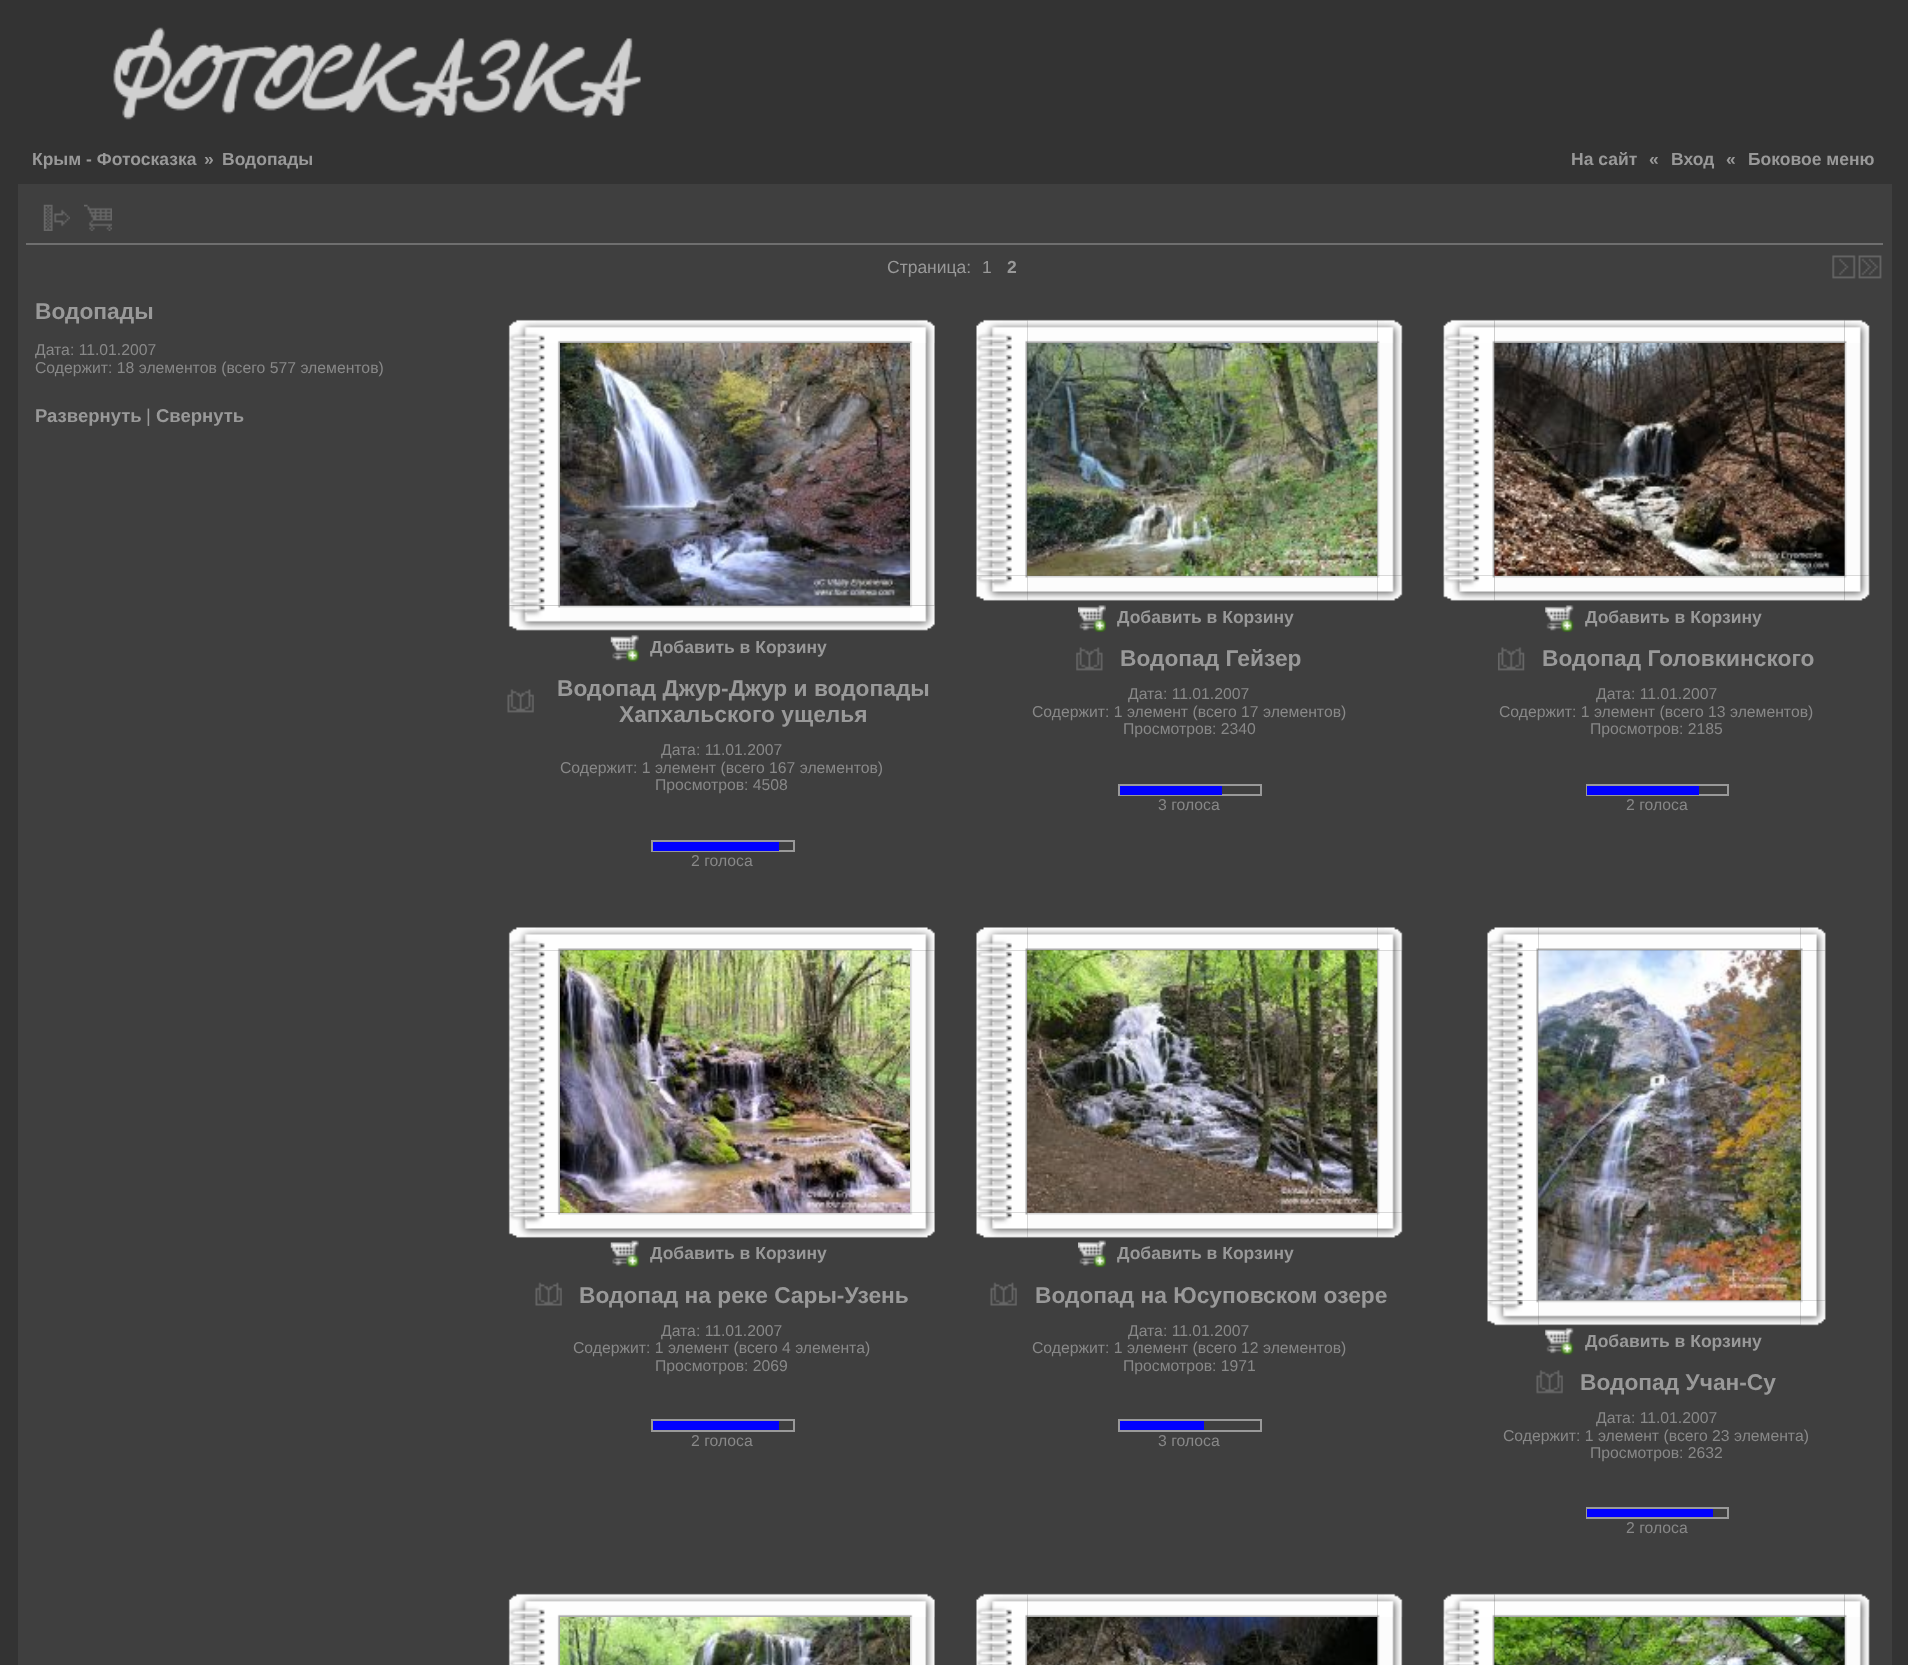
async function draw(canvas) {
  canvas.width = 1908
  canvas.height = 1665
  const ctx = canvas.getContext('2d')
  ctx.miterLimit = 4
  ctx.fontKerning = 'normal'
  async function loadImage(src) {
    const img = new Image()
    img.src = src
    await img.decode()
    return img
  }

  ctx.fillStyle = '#333'
  ctx.fillRect(0, 0, 1908, 1665)
  ctx.drawImage(await loadImage('image0.png'), 113, 27, 528, 93)
  ctx.font = 'bold 17.5px Liberation Sans'
  ctx.fillStyle = '#999'
  ctx.fillText('Крым - Фотосказка', 32, 165)
  ctx.fillText('»', 204, 165)
  ctx.fillText('Водопады', 222, 165)
  ctx.fillText('На сайт', 1571, 165)
  ctx.fillText('«', 1649, 165)
  ctx.fillText('Вход', 1671, 165)
  ctx.fillText('«', 1726, 165)
  ctx.fillText('Боковое меню', 1748, 165)
  ctx.fillStyle = '#3f3f3f'
  ctx.fillRect(18, 184, 1874, 1481)
  ctx.fillStyle = '#6f6f6f'
  ctx.fillRect(26, 243, 1857, 2)
  ctx.drawImage(await loadImage('image1.png'), 43, 204, 27, 27)
  ctx.drawImage(await loadImage('image2.png'), 84, 204, 28, 27)
  ctx.font = '17.5px Liberation Sans'
  ctx.fillStyle = '#999'
  ctx.fillText('Страница:', 887, 273)
  ctx.fillText('1', 982, 273)
  ctx.font = 'bold 17.5px Liberation Sans'
  ctx.fillText('2', 1007, 273)
  ctx.drawImage(await loadImage('image3.png'), 1832, 255, 24, 24)
  ctx.drawImage(await loadImage('image4.png'), 1858, 255, 24, 24)
  ctx.font = 'bold 22.75px Liberation Sans'
  ctx.fillText('Водопады', 35, 319)
  ctx.font = '15.75px Liberation Sans'
  ctx.fillStyle = '#888'
  ctx.fillText('Дата: 11.01.2007', 35, 355)
  ctx.fillText('Содержит: 18 элементов (всего 577 элементов)', 35, 373)
  ctx.font = 'bold 18.5px Liberation Sans'
  ctx.fillStyle = '#999'
  ctx.fillText('Развернуть', 35, 422)
  ctx.font = '18.5px Liberation Sans'
  ctx.fillText('|', 146, 422)
  ctx.font = 'bold 18.5px Liberation Sans'
  ctx.fillText('Свернуть', 156, 422)
  ctx.drawImage(await loadImage('image5.png'), 508, 319, 52, 24)
  ctx.drawImage(await loadImage('image6.png'), 560, 319, 350, 24)
  ctx.drawImage(await loadImage('image7.png'), 910, 319, 25, 24)
  ctx.drawImage(await loadImage('image8.png'), 508, 343, 52, 263)
  ctx.drawImage(await loadImage('image12.png'), 560, 605, 350, 26)
  ctx.drawImage(await loadImage('image9.png'), 560, 343, 350, 263)
  ctx.drawImage(await loadImage('image10.png'), 910, 343, 25, 263)
  ctx.drawImage(await loadImage('image11.png'), 508, 605, 52, 26)
  ctx.drawImage(await loadImage('image13.png'), 910, 605, 25, 26)
  ctx.drawImage(await loadImage('image14.png'), 610, 634, 29, 28)
  ctx.font = 'bold 17.5px Liberation Sans'
  ctx.fillText('Добавить в Корзину', 650, 653)
  ctx.drawImage(await loadImage('image15.png'), 507, 689, 27, 24)
  ctx.font = 'bold 22.75px Liberation Sans'
  ctx.fillText('Водопад Джур-Джур и водопады', 557, 696)
  ctx.fillText('Хапхальского ущелья', 619, 722)
  ctx.font = '15.75px Liberation Sans'
  ctx.fillStyle = '#888'
  ctx.fillText('Дата: 11.01.2007', 661, 755)
  ctx.fillText('Содержит: 1 элемент (всего 167 элементов)', 560, 773)
  ctx.fillText('Просмотров: 4508', 655, 790)
  ctx.strokeStyle = '#999'
  ctx.lineWidth = 2
  ctx.strokeRect(652, 841, 142, 10)
  ctx.fillStyle = '#00f'
  ctx.fillRect(653, 842, 126, 9)
  ctx.fillStyle = '#888'
  ctx.fillText('2 голоса', 691, 866)
  ctx.drawImage(await loadImage('image16.png'), 976, 319, 52, 24)
  ctx.drawImage(await loadImage('image17.png'), 1027, 319, 351, 24)
  ctx.drawImage(await loadImage('image18.png'), 1377, 319, 26, 24)
  ctx.drawImage(await loadImage('image19.png'), 976, 343, 52, 233)
  ctx.drawImage(await loadImage('image21.png'), 1377, 343, 26, 233)
  ctx.drawImage(await loadImage('image22.png'), 976, 575, 52, 26)
  ctx.drawImage(await loadImage('image23.png'), 1027, 575, 351, 26)
  ctx.drawImage(await loadImage('image24.png'), 1377, 575, 26, 26)
  ctx.drawImage(await loadImage('image20.png'), 1027, 343, 351, 233)
  ctx.drawImage(await loadImage('image25.png'), 1078, 605, 28, 27)
  ctx.font = 'bold 17.5px Liberation Sans'
  ctx.fillStyle = '#999'
  ctx.fillText('Добавить в Корзину', 1117, 623)
  ctx.drawImage(await loadImage('image26.png'), 1076, 647, 27, 24)
  ctx.font = 'bold 22.75px Liberation Sans'
  ctx.fillText('Водопад Гейзер', 1120, 666)
  ctx.font = '15.75px Liberation Sans'
  ctx.fillStyle = '#888'
  ctx.fillText('Дата: 11.01.2007', 1128, 699)
  ctx.fillText('Содержит: 1 элемент (всего 17 элементов)', 1032, 717)
  ctx.fillText('Просмотров: 2340', 1123, 734)
  ctx.strokeRect(1119, 785, 142, 10)
  ctx.fillStyle = '#00f'
  ctx.fillRect(1120, 786, 102, 9)
  ctx.fillStyle = '#888'
  ctx.fillText('3 голоса', 1158, 810)
  ctx.drawImage(await loadImage('image27.png'), 1443, 319, 52, 24)
  ctx.drawImage(await loadImage('image28.png'), 1494, 319, 351, 24)
  ctx.drawImage(await loadImage('image29.png'), 1844, 319, 26, 24)
  ctx.drawImage(await loadImage('image30.png'), 1443, 343, 52, 233)
  ctx.drawImage(await loadImage('image32.png'), 1844, 343, 26, 233)
  ctx.drawImage(await loadImage('image33.png'), 1443, 575, 52, 26)
  ctx.drawImage(await loadImage('image34.png'), 1494, 575, 351, 26)
  ctx.drawImage(await loadImage('image35.png'), 1844, 575, 26, 26)
  ctx.drawImage(await loadImage('image31.png'), 1494, 343, 351, 233)
  ctx.drawImage(await loadImage('image36.png'), 1545, 605, 29, 27)
  ctx.font = 'bold 17.5px Liberation Sans'
  ctx.fillStyle = '#999'
  ctx.fillText('Добавить в Корзину', 1585, 623)
  ctx.drawImage(await loadImage('image37.png'), 1498, 647, 27, 24)
  ctx.font = 'bold 22.75px Liberation Sans'
  ctx.fillText('Водопад Головкинского', 1542, 666)
  ctx.font = '15.75px Liberation Sans'
  ctx.fillStyle = '#888'
  ctx.fillText('Дата: 11.01.2007', 1596, 699)
  ctx.fillText('Содержит: 1 элемент (всего 13 элементов)', 1499, 717)
  ctx.fillText('Просмотров: 2185', 1590, 734)
  ctx.strokeRect(1587, 785, 141, 10)
  ctx.fillStyle = '#00f'
  ctx.fillRect(1587, 786, 112, 9)
  ctx.fillStyle = '#888'
  ctx.fillText('2 голоса', 1626, 810)
  ctx.drawImage(await loadImage('image38.png'), 508, 927, 52, 24)
  ctx.drawImage(await loadImage('image39.png'), 560, 927, 350, 24)
  ctx.drawImage(await loadImage('image40.png'), 910, 927, 25, 24)
  ctx.drawImage(await loadImage('image41.png'), 508, 950, 52, 263)
  ctx.drawImage(await loadImage('image45.png'), 560, 1212, 350, 26)
  ctx.drawImage(await loadImage('image42.png'), 560, 950, 350, 263)
  ctx.drawImage(await loadImage('image43.png'), 910, 950, 25, 263)
  ctx.drawImage(await loadImage('image44.png'), 508, 1212, 52, 26)
  ctx.drawImage(await loadImage('image46.png'), 910, 1212, 25, 26)
  ctx.drawImage(await loadImage('image47.png'), 610, 1240, 29, 27)
  ctx.font = 'bold 17.5px Liberation Sans'
  ctx.fillStyle = '#999'
  ctx.fillText('Добавить в Корзину', 650, 1259)
  ctx.drawImage(await loadImage('image48.png'), 535, 1282, 27, 24)
  ctx.font = 'bold 22.75px Liberation Sans'
  ctx.fillText('Водопад на реке Сары-Узень', 579, 1303)
  ctx.font = '15.75px Liberation Sans'
  ctx.fillStyle = '#888'
  ctx.fillText('Дата: 11.01.2007', 661, 1336)
  ctx.fillText('Содержит: 1 элемент (всего 4 элемента)', 573, 1353)
  ctx.fillText('Просмотров: 2069', 655, 1371)
  ctx.strokeRect(652, 1420, 142, 11)
  ctx.fillStyle = '#00f'
  ctx.fillRect(653, 1421, 126, 9)
  ctx.fillStyle = '#888'
  ctx.fillText('2 голоса', 691, 1446)
  ctx.drawImage(await loadImage('image49.png'), 976, 927, 52, 24)
  ctx.drawImage(await loadImage('image50.png'), 1027, 927, 351, 24)
  ctx.drawImage(await loadImage('image51.png'), 1377, 927, 26, 24)
  ctx.drawImage(await loadImage('image52.png'), 976, 950, 52, 263)
  ctx.drawImage(await loadImage('image54.png'), 1377, 950, 26, 263)
  ctx.drawImage(await loadImage('image55.png'), 976, 1212, 52, 26)
  ctx.drawImage(await loadImage('image23.png'), 1027, 1212, 351, 26)
  ctx.drawImage(await loadImage('image24.png'), 1377, 1212, 26, 26)
  ctx.drawImage(await loadImage('image53.png'), 1027, 950, 351, 263)
  ctx.drawImage(await loadImage('image56.png'), 1078, 1240, 28, 27)
  ctx.font = 'bold 17.5px Liberation Sans'
  ctx.fillStyle = '#999'
  ctx.fillText('Добавить в Корзину', 1117, 1259)
  ctx.drawImage(await loadImage('image57.png'), 990, 1282, 27, 24)
  ctx.font = 'bold 22.75px Liberation Sans'
  ctx.fillText('Водопад на Юсуповском озере', 1035, 1303)
  ctx.font = '15.75px Liberation Sans'
  ctx.fillStyle = '#888'
  ctx.fillText('Дата: 11.01.2007', 1128, 1336)
  ctx.fillText('Содержит: 1 элемент (всего 12 элементов)', 1032, 1353)
  ctx.fillText('Просмотров: 1971', 1123, 1371)
  ctx.strokeRect(1119, 1420, 142, 11)
  ctx.fillStyle = '#00f'
  ctx.fillRect(1120, 1421, 84, 9)
  ctx.fillStyle = '#888'
  ctx.fillText('3 голоса', 1158, 1446)
  ctx.drawImage(await loadImage('image49.png'), 1487, 927, 52, 24)
  ctx.drawImage(await loadImage('image58.png'), 1538, 927, 263, 24)
  ctx.drawImage(await loadImage('image59.png'), 1800, 927, 26, 24)
  ctx.drawImage(await loadImage('image60.png'), 1487, 950, 52, 351)
  ctx.drawImage(await loadImage('image62.png'), 1800, 950, 26, 351)
  ctx.drawImage(await loadImage('image63.png'), 1487, 1300, 52, 26)
  ctx.drawImage(await loadImage('image64.png'), 1538, 1300, 263, 26)
  ctx.drawImage(await loadImage('image65.png'), 1800, 1300, 26, 26)
  ctx.drawImage(await loadImage('image61.png'), 1538, 950, 263, 351)
  ctx.drawImage(await loadImage('image66.png'), 1545, 1327, 29, 28)
  ctx.font = 'bold 17.5px Liberation Sans'
  ctx.fillStyle = '#999'
  ctx.fillText('Добавить в Корзину', 1585, 1347)
  ctx.drawImage(await loadImage('image67.png'), 1536, 1370, 27, 24)
  ctx.font = 'bold 22.75px Liberation Sans'
  ctx.fillText('Водопад Учан-Су', 1580, 1390)
  ctx.font = '15.75px Liberation Sans'
  ctx.fillStyle = '#888'
  ctx.fillText('Дата: 11.01.2007', 1596, 1423)
  ctx.fillText('Содержит: 1 элемент (всего 23 элемента)', 1503, 1441)
  ctx.fillText('Просмотров: 2632', 1590, 1458)
  ctx.strokeRect(1587, 1508, 141, 10)
  ctx.fillStyle = '#00f'
  ctx.fillRect(1587, 1509, 126, 8)
  ctx.fillStyle = '#888'
  ctx.fillText('2 голоса', 1626, 1533)
  ctx.drawImage(await loadImage('image5.png'), 508, 1593, 52, 24)
  ctx.drawImage(await loadImage('image68.png'), 560, 1593, 350, 24)
  ctx.drawImage(await loadImage('image7.png'), 910, 1593, 25, 24)
  ctx.drawImage(await loadImage('image69.png'), 508, 1617, 52, 48)
  ctx.drawImage(await loadImage('image70.png'), 560, 1617, 350, 48)
  ctx.drawImage(await loadImage('image71.png'), 910, 1617, 25, 48)
  ctx.drawImage(await loadImage('image16.png'), 976, 1593, 52, 24)
  ctx.drawImage(await loadImage('image72.png'), 1027, 1593, 351, 24)
  ctx.drawImage(await loadImage('image18.png'), 1377, 1593, 26, 24)
  ctx.drawImage(await loadImage('image73.png'), 976, 1617, 52, 48)
  ctx.drawImage(await loadImage('image75.png'), 1377, 1617, 26, 48)
  ctx.drawImage(await loadImage('image74.png'), 1027, 1617, 351, 48)
  ctx.drawImage(await loadImage('image27.png'), 1443, 1593, 52, 24)
  ctx.drawImage(await loadImage('image76.png'), 1494, 1593, 351, 24)
  ctx.drawImage(await loadImage('image29.png'), 1844, 1593, 26, 24)
  ctx.drawImage(await loadImage('image77.png'), 1443, 1617, 52, 48)
  ctx.drawImage(await loadImage('image79.png'), 1844, 1617, 26, 48)
  ctx.drawImage(await loadImage('image78.png'), 1494, 1617, 351, 48)
}

draw(document.querySelector('canvas'))
